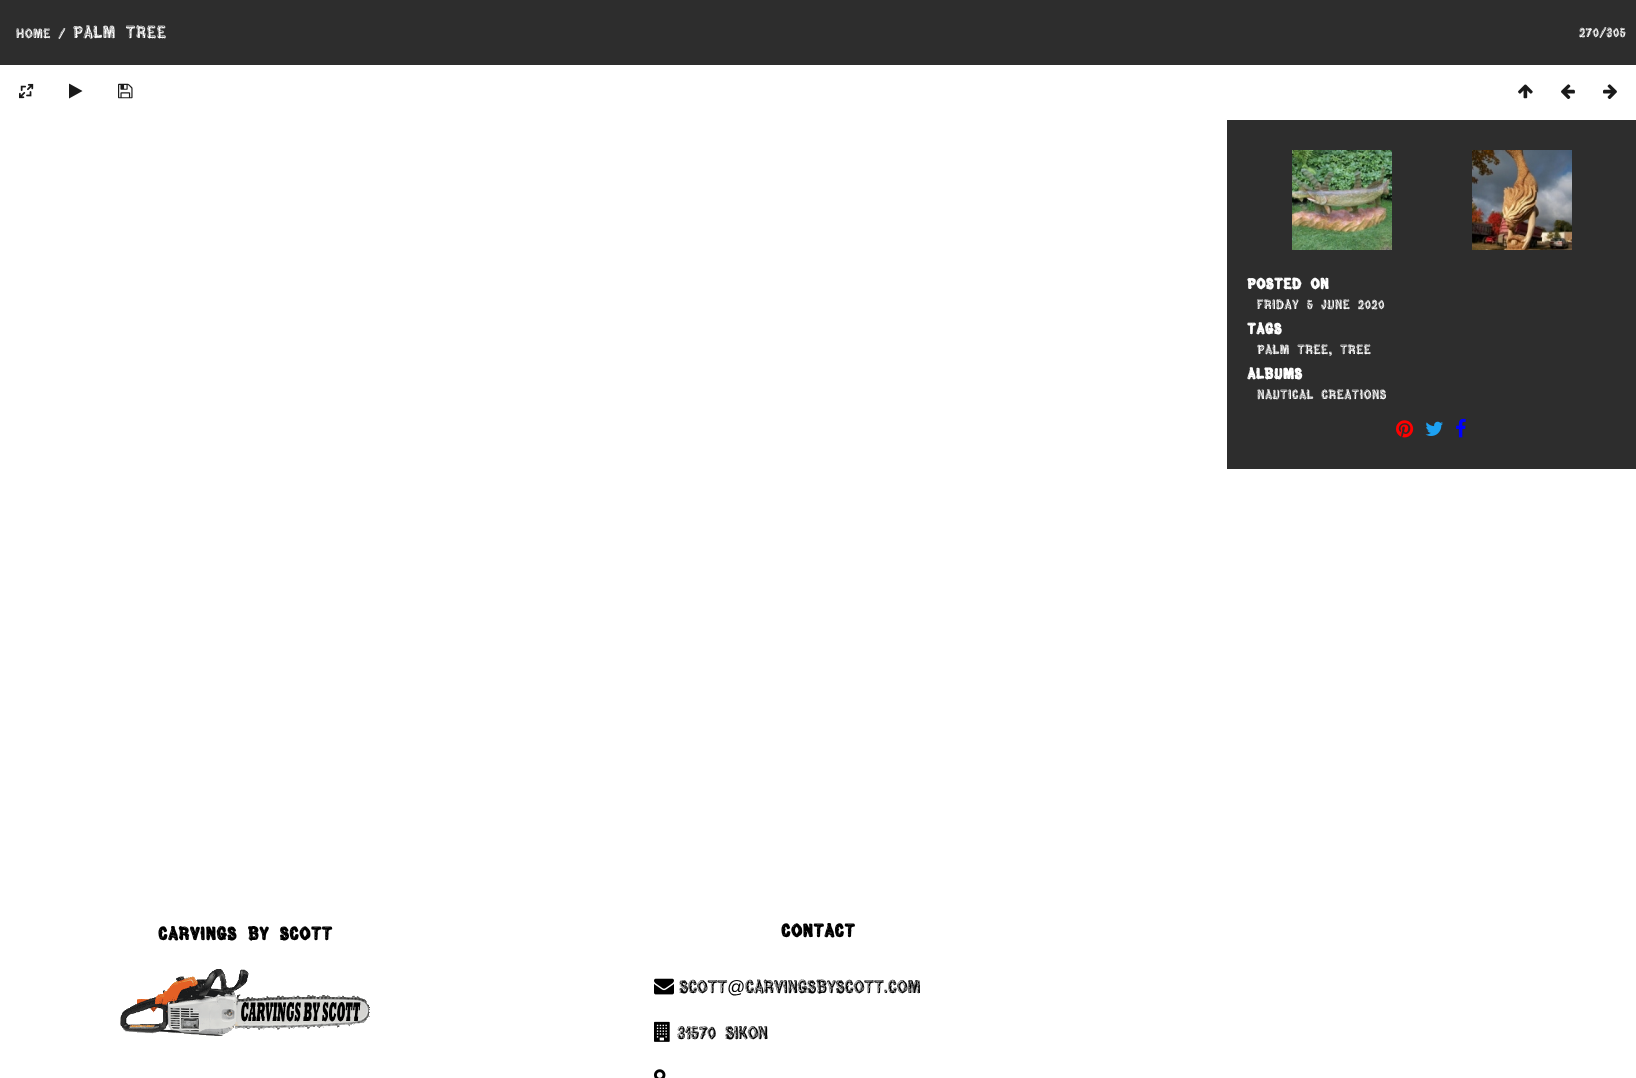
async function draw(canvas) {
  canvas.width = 1636
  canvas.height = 1078
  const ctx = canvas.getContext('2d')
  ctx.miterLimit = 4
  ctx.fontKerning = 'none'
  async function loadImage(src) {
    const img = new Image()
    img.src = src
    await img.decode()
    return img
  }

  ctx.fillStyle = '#fff'
  ctx.fillRect(0, 0, 1636, 1078)
  ctx.fillStyle = '#2d2d2d'
  ctx.fillRect(0, 0, 1636, 65)
  ctx.font = '13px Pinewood'
  ctx.fillStyle = '#fff'
  ctx.fillText('Home /', 16, 38)
  ctx.font = '17px Pinewood'
  ctx.fillText('Palm Tree', 73, 38)
  ctx.font = '13px Pinewood'
  ctx.fillText('270/305', 1579, 37)
  ctx.drawImage(await loadImage('image0.png'), 19, 83, 15, 16)
  ctx.font = '17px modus'
  ctx.fillStyle = '#1a1a1a'
  ctx.fillText('▶', 69, 97)
  ctx.fillText('💾', 118, 97)
  ctx.fillText('↑', 1518, 97)
  ctx.fillText('←', 1561, 97)
  ctx.fillText('→', 1603, 97)
  ctx.fillStyle = '#2d2d2d'
  ctx.fillRect(1227, 120, 409, 349)
  ctx.drawImage(await loadImage('image1.png'), 1292, 150, 100, 100)
  ctx.drawImage(await loadImage('image2.png'), 1472, 150, 100, 100)
  ctx.font = 'bold 15px Pinewood'
  ctx.fillStyle = '#fff'
  ctx.fillText('Posted on', 1247, 289)
  ctx.font = '13px Pinewood'
  ctx.fillText('Friday 5 June 2020', 1257, 309)
  ctx.font = 'bold 15px Pinewood'
  ctx.fillText('Tags', 1247, 334)
  ctx.font = '13px Pinewood'
  ctx.fillText('Palm Tree, Tree', 1257, 354)
  ctx.font = 'bold 15px Pinewood'
  ctx.fillText('Albums', 1247, 379)
  ctx.font = '13px Pinewood'
  ctx.fillText('Nautical Creations', 1257, 399)
  ctx.drawImage(await loadImage('image3.png'), 1396, 420, 18, 18)
  ctx.drawImage(await loadImage('image4.png'), 1425, 421, 18, 15)
  ctx.drawImage(await loadImage('image5.png'), 1456, 418, 10, 20)
  ctx.font = 'bold 18px Pinewood'
  ctx.fillStyle = '#000'
  ctx.fillText('Carvings By Scott', 158, 940)
  ctx.drawImage(await loadImage('image6.png'), 120, 969, 250, 67)
  ctx.fillText('Contact', 781, 937)
  ctx.drawImage(await loadImage('image7.png'), 654, 978, 20, 17)
  ctx.letterSpacing = '-1px'
  ctx.font = '18px Pinewood'
  ctx.fillText('Scott', 679, 993)
  ctx.font = '18px Liberation Sans'
  ctx.fillText('@', 727, 993)
  ctx.font = '18px Pinewood'
  ctx.fillText('CarvingsByScott.com', 745, 993)
  ctx.drawImage(await loadImage('image8.png'), 654, 1021, 16, 21)
  ctx.fillText('31570 Sikon', 677, 1039)
  ctx.drawImage(await loadImage('image9.png'), 654, 1069, 12, 9)
}

draw(document.querySelector('canvas'))
